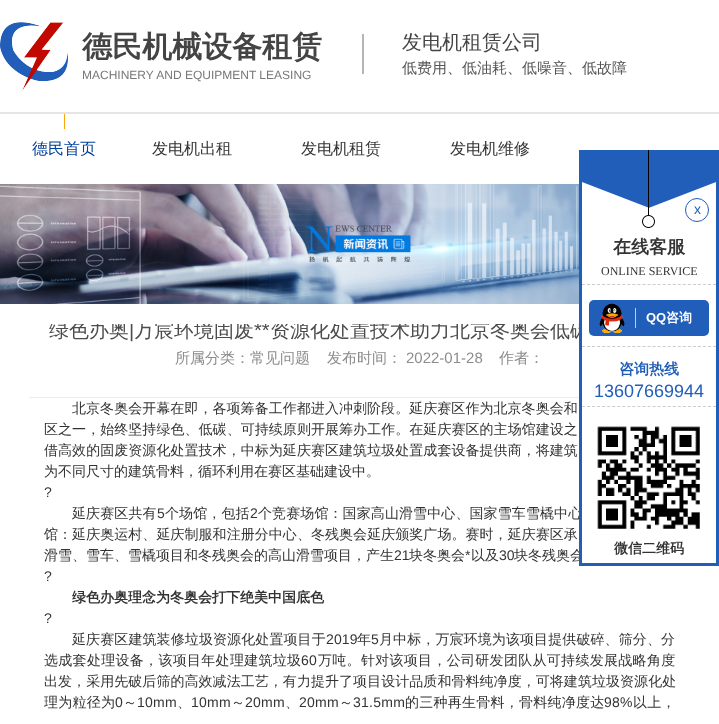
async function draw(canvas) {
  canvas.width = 719
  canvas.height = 724
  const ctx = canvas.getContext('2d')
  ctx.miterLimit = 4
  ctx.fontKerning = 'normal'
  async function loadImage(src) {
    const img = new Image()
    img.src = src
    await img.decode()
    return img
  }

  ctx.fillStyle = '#fff'
  ctx.fillRect(0, 0, 719, 724)
  ctx.drawImage(await loadImage('image0.png'), 0, 22, 68, 69)
  ctx.font = 'bold 30px WenQuanYi Zen Hei'
  ctx.fillStyle = '#444'
  ctx.fillText('德民机械设备租赁', 82, 57)
  ctx.font = '12px Liberation Sans'
  ctx.fillStyle = '#777'
  ctx.fillText('MACHINERY AND EQUIPMENT LEASING', 82, 79)
  ctx.fillStyle = '#b5b5b5'
  ctx.fillRect(362, 34, 2, 40)
  ctx.font = '500 20px WenQuanYi Zen Hei'
  ctx.fillStyle = '#444'
  ctx.fillText('发电机租赁公司', 402, 49)
  ctx.font = '500 15px WenQuanYi Zen Hei'
  ctx.fillStyle = '#555'
  ctx.fillText('低费用、低油耗、低噪音、低故障', 402, 73)
  ctx.fillStyle = '#e5e5e5'
  ctx.fillRect(0, 112, 719, 2)
  ctx.fillStyle = '#fca408'
  ctx.fillRect(64, 114, 1, 15)
  ctx.font = '500 16px WenQuanYi Zen Hei'
  ctx.fillStyle = '#003f99'
  ctx.fillText('德民首页', 32, 154)
  ctx.fillStyle = '#333'
  ctx.fillText('发电机出租', 152, 154)
  ctx.fillText('发电机租赁', 301, 154)
  ctx.fillText('发电机维修', 450, 154)
  ctx.drawImage(await loadImage('image1.png'), 0, 184, 579, 120)
  ctx.save()
  ctx.beginPath()
  ctx.rect(15, 324, 689, 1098)
  ctx.clip()
  ctx.font = '500 20px WenQuanYi Zen Hei'
  ctx.fillStyle = '#4c4c4c'
  ctx.fillText('资源化处置技术助力北京冬奥会低碳', 270, 337)
  ctx.restore()
  ctx.letterSpacing = '0.1px'
  ctx.font = '500 14px WenQuanYi Zen Hei'
  ctx.fillText('个竞赛场馆：国家高山滑雪中心、国家雪车雪橇中心', 258, 518)
  ctx.letterSpacing = '0px'
  ctx.fillText('块冬残奥会', 514, 560)
  ctx.fillStyle = '#215eb9'
  ctx.fillRect(579, 150, 140, 416)
  ctx.drawImage(await loadImage('image2.png'), 582, 150, 134, 257)
  ctx.beginPath()
  ctx.moveTo(582, 284.5)
  ctx.lineTo(716, 284.5)
  ctx.strokeStyle = '#ccc'
  ctx.setLineDash([3, 2.04])
  ctx.stroke()
  ctx.beginPath()
  ctx.arc(697, 210, 11.5, 0, 2 * Math.PI)
  ctx.strokeStyle = '#215eb9'
  ctx.setLineDash([])
  ctx.stroke()
  ctx.font = '14px Liberation Sans'
  ctx.fillText('x', 694, 214)
  ctx.font = 'bold 18px WenQuanYi Zen Hei'
  ctx.fillStyle = '#333'
  ctx.fillText('在线客服', 613, 253)
  ctx.font = '12px Liberation Serif'
  ctx.fillText('ONLINE SERVICE', 601, 275)
  ctx.beginPath()
  ctx.moveTo(582, 346.5)
  ctx.lineTo(716, 346.5)
  ctx.strokeStyle = '#ccc'
  ctx.setLineDash([3, 2.04])
  ctx.stroke()
  ctx.fillStyle = '#215eb9'
  ctx.beginPath()
  ctx.roundRect(589, 300, 120, 36, 5)
  ctx.fill()
  ctx.drawImage(await loadImage('image3.png'), 599, 303, 26, 30)
  ctx.fillStyle = '#ccc'
  ctx.fillRect(635, 308, 1, 20)
  ctx.font = 'bold 13px Liberation Sans'
  ctx.fillStyle = '#fff'
  ctx.fillText('QQ', 646, 322)
  ctx.font = 'bold 13px WenQuanYi Zen Hei'
  ctx.fillText('咨询', 666, 322)
  ctx.beginPath()
  ctx.moveTo(582, 406.5)
  ctx.lineTo(716, 406.5)
  ctx.stroke()
  ctx.font = 'bold 15px WenQuanYi Zen Hei'
  ctx.fillStyle = '#215eb9'
  ctx.fillText('咨询热线', 619, 374)
  ctx.font = '18px Liberation Sans'
  ctx.fillText('13607669944', 594, 397)
  ctx.fillStyle = '#fff'
  ctx.fillRect(582, 407, 134, 156)
  ctx.drawImage(await loadImage('image4.png'), 597, 426, 103, 103)
  ctx.font = 'bold 14px WenQuanYi Zen Hei'
  ctx.fillStyle = '#333'
  ctx.fillText('微信二维码', 614, 553)
  ctx.save()
  ctx.beginPath()
  ctx.rect(15, 324, 689, 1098)
  ctx.clip()
  ctx.font = '500 20px WenQuanYi Zen Hei'
  ctx.fillStyle = '#4c4c4c'
  ctx.fillText('绿色办奥', 49, 337)
  ctx.font = '20px Liberation Sans'
  ctx.fillText('|', 129, 337)
  ctx.font = '500 20px WenQuanYi Zen Hei'
  ctx.fillText('万宸环境固废', 134, 337)
  ctx.font = '20px Liberation Sans'
  ctx.fillText('**', 254, 337)
  ctx.restore()
  ctx.font = '500 15px WenQuanYi Zen Hei'
  ctx.fillStyle = '#8c8c8c'
  ctx.fillText('所属分类：常见问题', 175, 363)
  ctx.fillText('发布时间：', 327, 363)
  ctx.font = '15px Liberation Sans'
  ctx.fillText('2022-01-28', 406, 363)
  ctx.font = '500 15px WenQuanYi Zen Hei'
  ctx.fillText('作者：', 499, 363)
  ctx.fillStyle = '#ededed'
  ctx.fillRect(29, 397, 550, 1)
  ctx.letterSpacing = '0.05px'
  ctx.font = '500 14px WenQuanYi Zen Hei'
  ctx.fillStyle = '#333'
  ctx.fillText('北京冬奥会开幕在即，各项筹备工作都进入冲刺阶段。延庆赛区作为北京冬奥会和', 72, 413)
  ctx.fillText('区之一，始终坚持绿色、低碳、可持续原则开展筹办工作。在延庆赛区的主场馆建设之', 44, 434)
  ctx.fillText('借高效的固废资源化处置技术，中标为延庆赛区建筑垃圾处置成套设备提供商，将建筑', 44, 455)
  ctx.letterSpacing = '0px'
  ctx.fillText('为不同尺寸的建筑骨料，循环利用在赛区基础建设中。', 44, 476)
  ctx.font = '14px Liberation Sans'
  ctx.fillText('?', 44, 497)
  ctx.letterSpacing = '0.1px'
  ctx.font = '500 14px WenQuanYi Zen Hei'
  ctx.fillText('延庆赛区共有', 72, 518)
  ctx.font = '14px Liberation Sans'
  ctx.fillText('5', 157, 518)
  ctx.font = '500 14px WenQuanYi Zen Hei'
  ctx.fillText('个场馆，包括', 165, 518)
  ctx.font = '14px Liberation Sans'
  ctx.fillText('2', 250, 518)
  ctx.letterSpacing = '0.05px'
  ctx.font = '500 14px WenQuanYi Zen Hei'
  ctx.fillText('馆：延庆奥运村、延庆制服和注册分中心、冬残奥会延庆颁奖广场。赛时，延庆赛区承', 44, 539)
  ctx.letterSpacing = '0px'
  ctx.fillText('滑雪、雪车、雪橇项目和冬残奥会的高山滑雪项目，产生', 44, 560)
  ctx.font = '14px Liberation Sans'
  ctx.fillText('21', 394, 560)
  ctx.font = '500 14px WenQuanYi Zen Hei'
  ctx.fillText('块冬奥会', 409, 560)
  ctx.font = '14px Liberation Sans'
  ctx.fillText('*', 465, 560)
  ctx.font = '500 14px WenQuanYi Zen Hei'
  ctx.fillText('以及', 471, 560)
  ctx.font = '14px Liberation Sans'
  ctx.fillText('30', 499, 560)
  ctx.fillText('?', 44, 581)
  ctx.font = 'bold 14px WenQuanYi Zen Hei'
  ctx.fillText('绿色办奥理念为冬奥会打下绝美中国底色', 72, 602)
  ctx.font = '14px Liberation Sans'
  ctx.fillText('?', 44, 623)
  ctx.letterSpacing = '0.1px'
  ctx.font = '500 14px WenQuanYi Zen Hei'
  ctx.fillText('延庆赛区建筑装修垃圾资源化处置项目于', 72, 644)
  ctx.font = '14px Liberation Sans'
  ctx.fillText('2019', 326, 644)
  ctx.font = '500 14px WenQuanYi Zen Hei'
  ctx.fillText('年', 357, 644)
  ctx.font = '14px Liberation Sans'
  ctx.fillText('5', 371, 644)
  ctx.font = '500 14px WenQuanYi Zen Hei'
  ctx.fillText('月中标，万宸环境为该项目提供破碎、筛分、分', 379, 644)
  ctx.letterSpacing = '0.3px'
  ctx.fillText('选成套处理设备，该项目年处理建筑垃圾', 44, 665)
  ctx.font = '14px Liberation Sans'
  ctx.fillText('60', 301, 665)
  ctx.font = '500 14px WenQuanYi Zen Hei'
  ctx.fillText('万吨。针对该项目，公司研发团队从可持续发展战略角度', 318, 665)
  ctx.letterSpacing = '0.05px'
  ctx.fillText('出发，采用先破后筛的高效减法工艺，有力提升了项目设计品质和骨料纯净度，可将建筑垃圾资源化处', 44, 686)
  ctx.letterSpacing = '0.25px'
  ctx.fillText('理为粒径为', 44, 707)
  ctx.font = '14px Liberation Sans'
  ctx.fillText('0', 115, 707)
  ctx.font = '500 14px WenQuanYi Zen Hei'
  ctx.fillText('～', 123, 707)
  ctx.font = '14px Liberation Sans'
  ctx.fillText('10mm', 137, 707)
  ctx.fillText('10mm', 191, 707)
  ctx.font = '500 14px WenQuanYi Zen Hei'
  ctx.fillText('～', 231, 707)
  ctx.font = '14px Liberation Sans'
  ctx.fillText('20mm', 245, 707)
  ctx.fillText('20mm', 299, 707)
  ctx.font = '500 14px WenQuanYi Zen Hei'
  ctx.fillText('～', 339, 707)
  ctx.font = '14px Liberation Sans'
  ctx.fillText('31.5mm', 353, 707)
  ctx.font = '500 14px WenQuanYi Zen Hei'
  ctx.fillText('的三种再生骨料，骨料纯净度达', 405, 707)
  ctx.font = '14px Liberation Sans'
  ctx.fillText('98%', 604, 707)
  ctx.font = '500 14px WenQuanYi Zen Hei'
  ctx.fillText('以上，', 633, 707)
  ctx.fillText('、', 177, 707)
  ctx.fillText('、', 285, 707)
}

draw(document.querySelector('canvas'))
